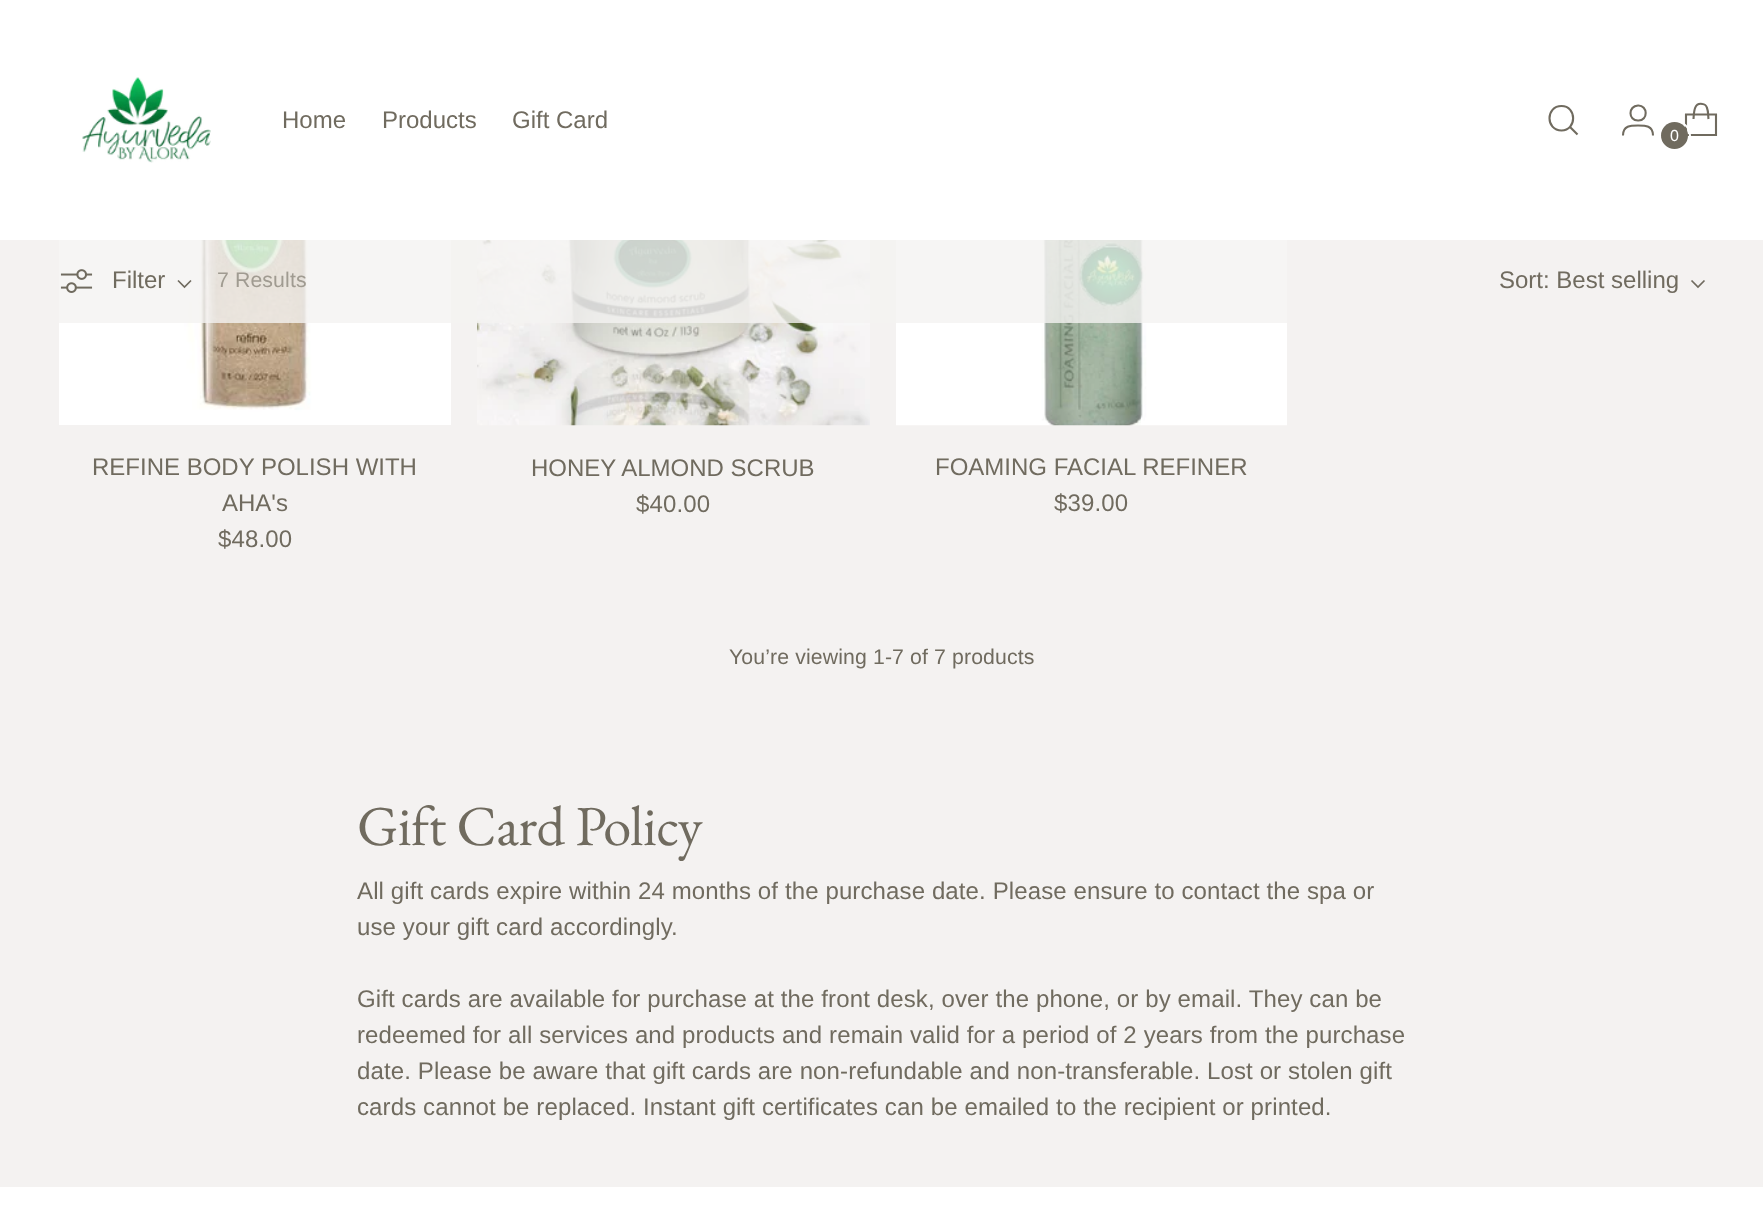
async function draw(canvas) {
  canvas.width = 1763
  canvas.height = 1225
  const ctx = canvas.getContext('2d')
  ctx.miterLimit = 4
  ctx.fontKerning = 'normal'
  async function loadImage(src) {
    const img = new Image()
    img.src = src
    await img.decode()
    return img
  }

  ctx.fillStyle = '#f4f2f1'
  ctx.fillRect(0, 0, 1763, 1225)
  ctx.fillStyle = '#fff'
  ctx.fillRect(0, 0, 1763, 240)
  ctx.drawImage(await loadImage('image0.png'), 82, 77, 129, 86)
  ctx.font = '24px Arimo'
  ctx.fillStyle = '#706b5f'
  ctx.fillText('Home', 282, 128)
  ctx.fillText('Products', 382, 128)
  ctx.fillText('Gift Card', 512, 128)
  ctx.beginPath()
  ctx.moveTo(1561.5, 130.5)
  ctx.bezierCurveTo(1577, 130.5, 1577, 106, 1561.5, 106)
  ctx.bezierCurveTo(1545.5, 106, 1545.5, 130.5, 1561.5, 130.5)
  ctx.closePath()
  ctx.strokeStyle = '#706b5f'
  ctx.lineWidth = 2.1
  ctx.lineCap = 'round'
  ctx.stroke()
  ctx.beginPath()
  ctx.moveTo(1570, 127)
  ctx.lineTo(1577.5, 134.5)
  ctx.lineCap = 'butt'
  ctx.stroke()
  ctx.beginPath()
  ctx.moveTo(1638, 120.5)
  ctx.bezierCurveTo(1648.5, 121, 1648, 105, 1638, 105.5)
  ctx.bezierCurveTo(1628, 106, 1628, 120.5, 1638, 120.5)
  ctx.closePath()
  ctx.moveTo(1623, 135.5)
  ctx.bezierCurveTo(1623, 125.5, 1630.5, 125.5, 1638, 125.5)
  ctx.bezierCurveTo(1645.5, 125.5, 1653, 125.5, 1653, 135.5)
  ctx.stroke()
  ctx.beginPath()
  ctx.moveTo(1708.5, 119)
  ctx.bezierCurveTo(1708, 115.5, 1708.5, 111.5, 1707, 108)
  ctx.bezierCurveTo(1706.5, 106, 1704.5, 104, 1702.5, 104)
  ctx.bezierCurveTo(1693.5, 102, 1694, 113.5, 1693.5, 119)
  ctx.lineJoin = 'bevel'
  ctx.stroke()
  ctx.beginPath()
  ctx.moveTo(1716, 135)
  ctx.lineTo(1716, 114.5)
  ctx.lineTo(1686, 114.5)
  ctx.lineTo(1686, 135)
  ctx.closePath()
  ctx.lineJoin = 'miter'
  ctx.stroke()
  ctx.beginPath()
  ctx.arc(1675, 136, 15, 0, 2 * Math.PI)
  ctx.strokeStyle = '#fff'
  ctx.lineWidth = 2
  ctx.stroke()
  ctx.beginPath()
  ctx.arc(1674.5, 135.5, 13.5, 0, 2 * Math.PI)
  ctx.fill()
  ctx.letterSpacing = '0.12px'
  ctx.font = '16px Arimo'
  ctx.fillStyle = '#fff'
  ctx.fillText('0', 1670, 141)
  ctx.drawImage(await loadImage('image2.png'), 59, 240, 392, 185)
  ctx.drawImage(await loadImage('image3.png'), 477, 240, 393, 186)
  ctx.drawImage(await loadImage('image4.png'), 896, 240, 391, 186)
  ctx.fillStyle = '#f4f2f1cc'
  ctx.fillRect(59, 240, 1228, 83)
  ctx.drawImage(await loadImage('image1.png'), 60, 269, 33, 24)
  ctx.letterSpacing = '0px'
  ctx.font = '24px Arimo'
  ctx.fillStyle = '#706b5f'
  ctx.fillText('Filter', 112, 288)
  ctx.beginPath()
  ctx.moveTo(178, 280.5)
  ctx.lineTo(184.5, 287)
  ctx.lineTo(191, 280.5)
  ctx.strokeStyle = '#706b5f'
  ctx.lineWidth = 1.7
  ctx.stroke()
  ctx.letterSpacing = '0.12px'
  ctx.font = '21.25px Arimo'
  ctx.fillStyle = '#a09b91'
  ctx.fillText('7 Results', 217, 287)
  ctx.letterSpacing = '0px'
  ctx.font = '24px Arimo'
  ctx.fillStyle = '#706b5f'
  ctx.fillText('Sort: Best selling', 1499, 288)
  ctx.beginPath()
  ctx.moveTo(1691.5, 280.5)
  ctx.lineTo(1698, 287)
  ctx.lineTo(1704.5, 280.5)
  ctx.stroke()
  ctx.fillText('REFINE BODY POLISH WITH', 92, 475)
  ctx.fillText('AHA\'s', 222, 511)
  ctx.letterSpacing = '0.12px'
  ctx.fillText('$48.00', 218, 547)
  ctx.letterSpacing = '0px'
  ctx.fillText('HONEY ALMOND SCRUB', 531, 476)
  ctx.letterSpacing = '0.12px'
  ctx.fillText('$40.00', 636, 512)
  ctx.letterSpacing = '0px'
  ctx.fillText('FOAMING FACIAL REFINER', 935, 475)
  ctx.letterSpacing = '0.12px'
  ctx.fillText('$39.00', 1054, 511)
  ctx.font = '21.25px Arimo'
  ctx.fillText('You’re viewing 1-7 of 7', 729, 664)
  ctx.fillText('products', 952, 664)
  ctx.letterSpacing = '-0.5px'
  ctx.font = '56.5px EB Garamond'
  ctx.fillText('Gift Card Policy', 357, 845)
  ctx.letterSpacing = '0.12px'
  ctx.font = '24px Arimo'
  ctx.fillText('All gift cards expire within 24 months of the purchase date. Please ensure to contact the spa or', 357, 899)
  ctx.fillText('use your gift card accordingly.', 357, 935)
  ctx.fillText('Gift cards are available for purchase at the front desk, over the phone, or by email. They can be', 357, 1007)
  ctx.fillText('redeemed for all services and products and remain valid for a period of 2 years from the purchase', 357, 1043)
  ctx.fillText('date. Please be aware that gift cards are non-refundable and non-transferable. Lost or stolen gift', 357, 1079)
  ctx.fillText('cards cannot be replaced. Instant gift certificates can be emailed to the recipient or printed.', 357, 1115)
  ctx.fillStyle = '#fff'
  ctx.fillRect(0, 1187, 1763, 38)
}

draw(document.querySelector('canvas'))
